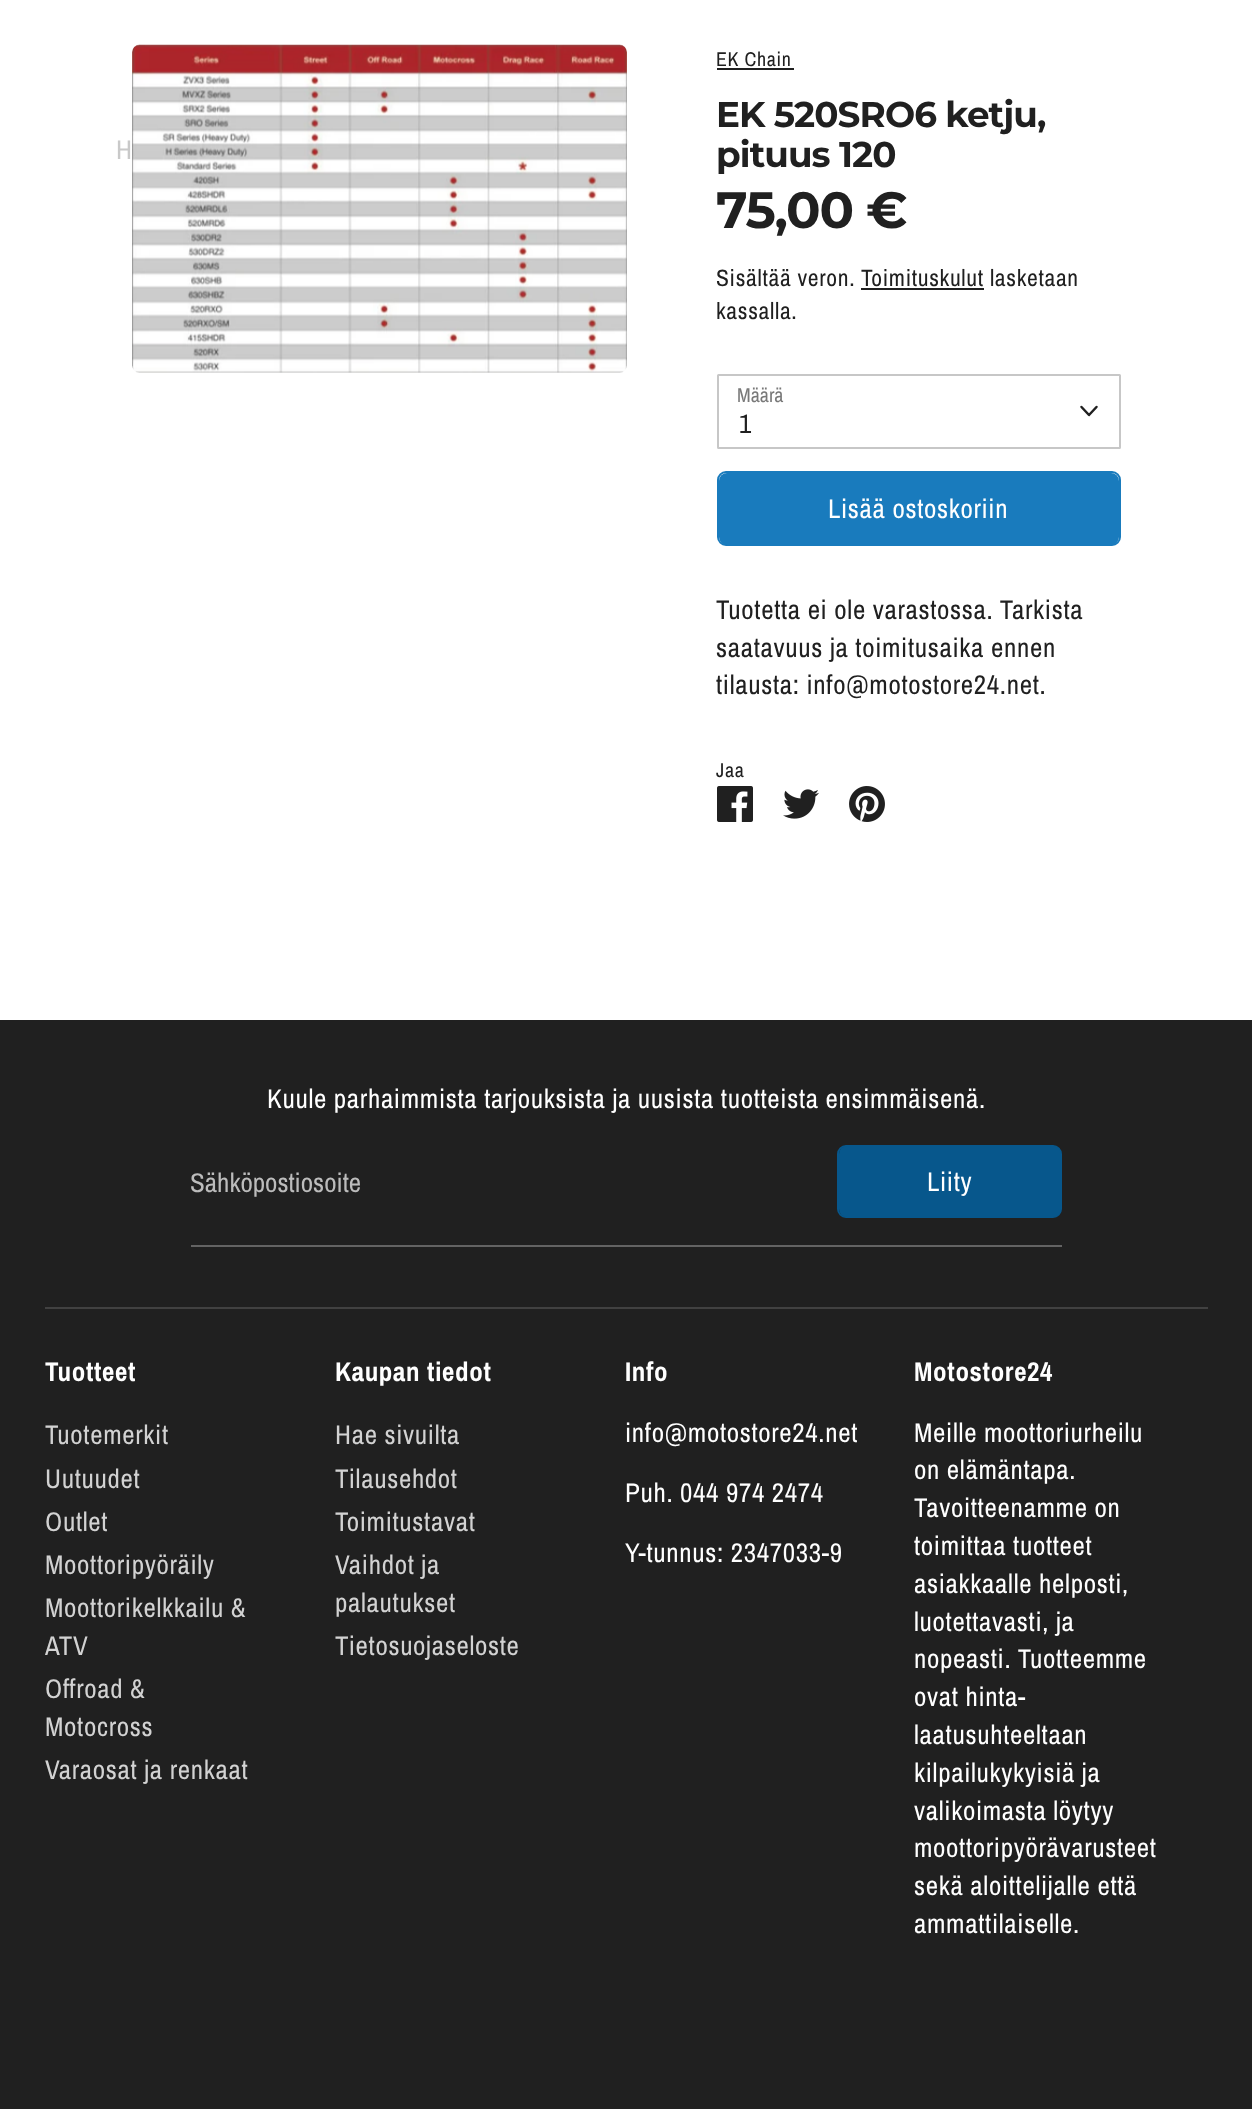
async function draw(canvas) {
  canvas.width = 1252
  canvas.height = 2109
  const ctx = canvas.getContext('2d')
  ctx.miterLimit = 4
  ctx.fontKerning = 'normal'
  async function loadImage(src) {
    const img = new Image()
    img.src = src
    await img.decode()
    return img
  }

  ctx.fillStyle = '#fff'
  ctx.fillRect(0, 0, 1252, 2109)
  ctx.font = '27px Archivo Narrow'
  ctx.fillStyle = '#c9c9c9'
  ctx.fillText('H', 116, 159)
  ctx.drawImage(await loadImage('image0.png'), 132, 44, 495, 329)
  ctx.letterSpacing = '0.68px'
  ctx.font = '20px Archivo Narrow'
  ctx.fillStyle = '#202020'
  ctx.fillText('EK Chain', 716, 66)
  ctx.fillRect(717, 68, 77, 2)
  ctx.letterSpacing = '-0.9px'
  ctx.font = 'bold 35.75px Montserrat'
  ctx.fillText('EK 520SRO6 ketju,', 716, 127)
  ctx.fillText('pituus 120', 716, 167)
  ctx.letterSpacing = '-1.25px'
  ctx.font = 'bold 51px Montserrat'
  ctx.fillText('75,00 €', 716, 228)
  ctx.letterSpacing = '0.68px'
  ctx.font = '23.6px Archivo Narrow'
  ctx.fillText('Sisältää veron.', 716, 286)
  ctx.fillText('Toimituskulut lasketaan', 861, 286)
  ctx.fillRect(861, 288, 123, 2)
  ctx.fillText('kassalla.', 716, 319)
  ctx.letterSpacing = '0px'
  ctx.font = '20px Archivo Narrow'
  ctx.fillStyle = '#797979'
  ctx.fillText('Määrä', 737, 402)
  ctx.beginPath()
  ctx.roundRect(718, 375, 402, 73, 0.5)
  ctx.strokeStyle = '#c7c7c7'
  ctx.lineWidth = 2
  ctx.stroke()
  ctx.beginPath()
  ctx.moveTo(1081.5, 407)
  ctx.lineTo(1089, 415)
  ctx.lineTo(1096.5, 407)
  ctx.strokeStyle = '#202020'
  ctx.lineWidth = 2.5
  ctx.lineCap = 'round'
  ctx.lineJoin = 'round'
  ctx.stroke()
  ctx.letterSpacing = '0.68px'
  ctx.font = '27px Archivo Narrow'
  ctx.fillStyle = '#202020'
  ctx.fillText('1', 739, 433)
  ctx.beginPath()
  ctx.roundRect(718, 472, 402, 73, 8)
  ctx.strokeStyle = '#197bbd'
  ctx.lineWidth = 2
  ctx.lineJoin = 'miter'
  ctx.stroke()
  ctx.fillStyle = '#197bbd'
  ctx.beginPath()
  ctx.roundRect(719, 473, 400, 72, 8)
  ctx.fill()
  ctx.fillStyle = '#fff'
  ctx.fillText('Lisää ostoskoriin', 828, 518)
  ctx.fillStyle = '#202020'
  ctx.fillText('Tuotetta ei ole varastossa. Tarkista', 716, 619)
  ctx.fillText('saatavuus ja toimitusaika ennen', 716, 657)
  ctx.fillText('tilausta: info@motostore24.net.', 716, 694)
  ctx.font = '20px Archivo Narrow'
  ctx.fillText('Jaa', 716, 777)
  ctx.drawImage(await loadImage('image1.png'), 717, 786, 36, 36)
  ctx.drawImage(await loadImage('image2.png'), 783, 789, 36, 30)
  ctx.drawImage(await loadImage('image3.png'), 849, 786, 36, 36)
  ctx.fillRect(0, 1020, 1252, 1089)
  ctx.font = '27px Archivo Narrow'
  ctx.fillStyle = '#fff'
  ctx.fillText('Kuule parhaimmista tarjouksista ja uusista tuotteista ensimmäisenä.', 267, 1108)
  ctx.fillStyle = '#636363'
  ctx.fillRect(191, 1245, 871, 2)
  ctx.letterSpacing = '0px'
  ctx.fillStyle = '#bcbcbc'
  ctx.fillText('Sähköpostiosoite', 190, 1192)
  ctx.beginPath()
  ctx.roundRect(838, 1146, 223, 71, 8)
  ctx.strokeStyle = '#07578c'
  ctx.stroke()
  ctx.fillStyle = '#07578c'
  ctx.beginPath()
  ctx.roundRect(839, 1146, 222, 71, 8)
  ctx.fill()
  ctx.letterSpacing = '0.68px'
  ctx.fillStyle = '#fff'
  ctx.fillText('Liity', 927, 1191)
  ctx.fillStyle = '#414141'
  ctx.fillRect(45, 1307, 1163, 2)
  ctx.font = 'bold 27px Archivo Narrow'
  ctx.fillStyle = '#fff'
  ctx.fillText('Tuotteet', 45, 1381)
  ctx.font = '27px Archivo Narrow'
  ctx.fillStyle = '#d2d2d2'
  ctx.fillText('Tuotemerkit', 45, 1444)
  ctx.fillText('Uutuudet', 45, 1488)
  ctx.fillText('Outlet', 45, 1531)
  ctx.fillText('Moottoripyöräily', 45, 1574)
  ctx.fillText('Moottorikelkkailu &', 45, 1617)
  ctx.fillText('ATV', 45, 1655)
  ctx.fillText('Offroad &', 45, 1698)
  ctx.fillText('Motocross', 45, 1736)
  ctx.fillText('Varaosat ja renkaat', 45, 1779)
  ctx.font = 'bold 27px Archivo Narrow'
  ctx.fillStyle = '#fff'
  ctx.fillText('Kaupan tiedot', 335, 1381)
  ctx.font = '27px Archivo Narrow'
  ctx.fillStyle = '#d2d2d2'
  ctx.fillText('Hae sivuilta', 335, 1444)
  ctx.fillText('Tilausehdot', 335, 1488)
  ctx.fillText('Toimitustavat', 335, 1531)
  ctx.fillText('Vaihdot ja', 335, 1574)
  ctx.fillText('palautukset', 335, 1612)
  ctx.fillText('Tietosuojaseloste', 335, 1655)
  ctx.font = 'bold 27px Archivo Narrow'
  ctx.fillStyle = '#fff'
  ctx.fillText('Info', 625, 1381)
  ctx.font = '27px Archivo Narrow'
  ctx.fillText('info@motostore24.net', 625, 1442)
  ctx.fillText('Puh. 044 974 2474', 625, 1502)
  ctx.fillText('Y-tunnus: 2347033-9', 625, 1562)
  ctx.font = 'bold 27px Archivo Narrow'
  ctx.fillText('Motostore24', 914, 1381)
  ctx.font = '27px Archivo Narrow'
  ctx.fillText('Meille moottoriurheilu', 914, 1442)
  ctx.fillText('on elämäntapa.', 914, 1479)
  ctx.fillText('Tavoitteenamme on', 914, 1517)
  ctx.fillText('toimittaa tuotteet', 914, 1555)
  ctx.fillText('asiakkaalle helposti,', 914, 1593)
  ctx.fillText('luotettavasti, ja', 914, 1631)
  ctx.fillText('nopeasti. Tuotteemme', 914, 1668)
  ctx.fillText('ovat hinta-', 914, 1706)
  ctx.fillText('laatusuhteeltaan', 914, 1744)
  ctx.fillText('kilpailukykyisiä ja', 914, 1782)
  ctx.fillText('valikoimasta löytyy', 914, 1820)
  ctx.fillText('moottoripyörävarusteet', 914, 1857)
  ctx.fillText('sekä aloittelijalle että', 914, 1895)
  ctx.fillText('ammattilaiselle.', 914, 1933)
}

draw(document.querySelector('canvas'))
